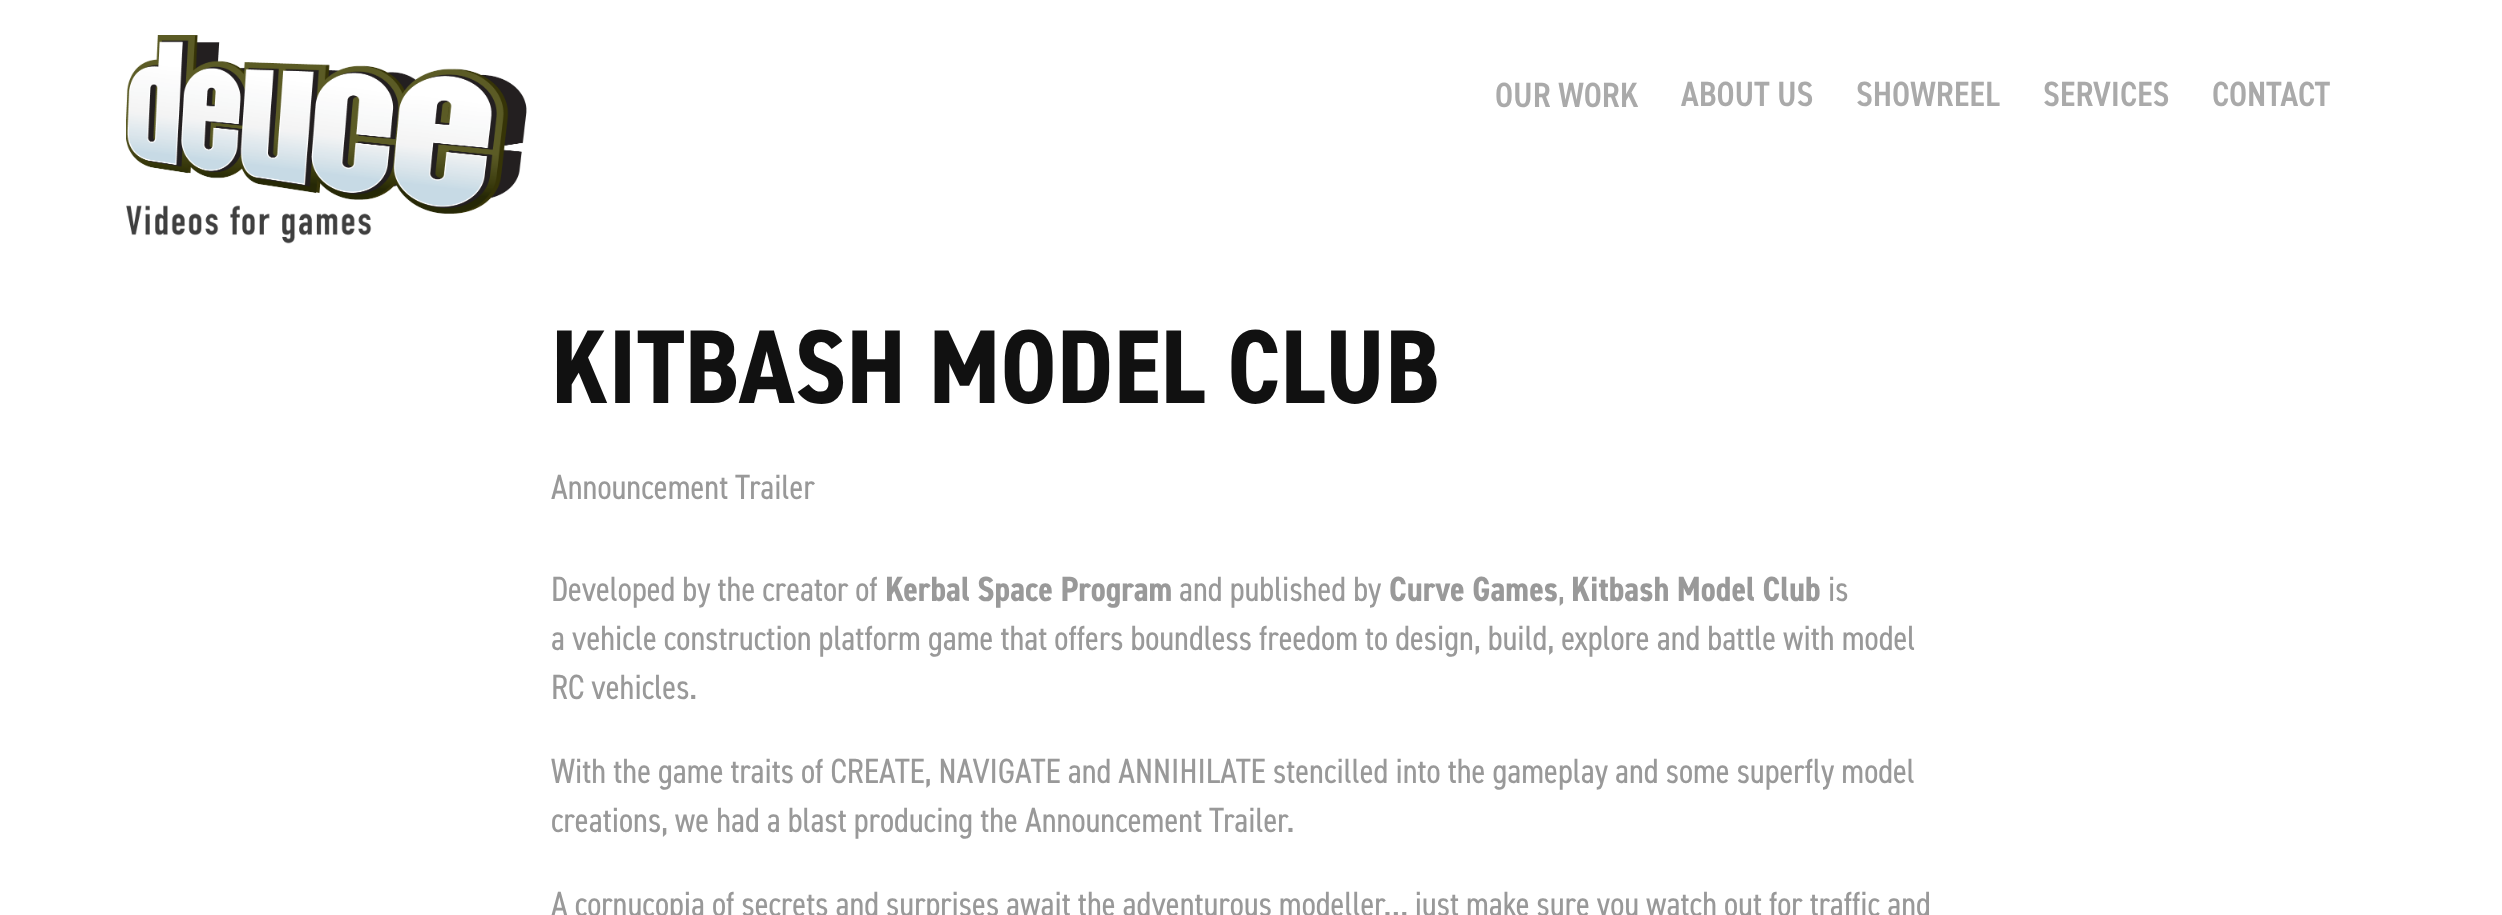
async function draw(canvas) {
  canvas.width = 2502
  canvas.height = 915
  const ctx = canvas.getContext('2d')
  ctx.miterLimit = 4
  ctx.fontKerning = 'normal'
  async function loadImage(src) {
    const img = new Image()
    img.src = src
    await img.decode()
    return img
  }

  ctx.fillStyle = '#fff'
  ctx.fillRect(0, 0, 2502, 915)
  ctx.drawImage(await loadImage('image0.png'), 126, 35, 401, 209)
  ctx.font = '600 35px "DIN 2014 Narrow"'
  ctx.fillStyle = '#aaa'
  ctx.fillText('OUR WORK', 1495, 107)
  ctx.fillText('ABOUT US', 1681, 106)
  ctx.fillText('SHOWREEL', 1856, 106)
  ctx.fillText('SERVICES', 2043, 106)
  ctx.fillText('CONTACT', 2212, 106)
  ctx.font = 'bold 105px "DIN 2014 Narrow"'
  ctx.fillStyle = '#111'
  ctx.fillText('KITBASH MODEL CLUB', 551, 403)
  ctx.font = '35px "DIN 2014 Narrow"'
  ctx.fillStyle = '#999'
  ctx.fillText('Announcement Trailer', 551, 499)
  ctx.fillText('Developed by the creator of', 551, 601)
  ctx.font = 'bold 35px "DIN 2014 Narrow"'
  ctx.fillText('Kerbal Space Program', 885, 601)
  ctx.font = '35px "DIN 2014 Narrow"'
  ctx.fillText('and published by', 1179, 601)
  ctx.font = 'bold 35px "DIN 2014 Narrow"'
  ctx.fillText('Curve Games', 1389, 601)
  ctx.font = '35px "DIN 2014 Narrow"'
  ctx.fillText(',', 1558, 601)
  ctx.font = 'bold 35px "DIN 2014 Narrow"'
  ctx.fillText('Kitbash Model Club', 1571, 601)
  ctx.font = '35px "DIN 2014 Narrow"'
  ctx.fillText('is', 1828, 601)
  ctx.fillText('a vehicle construction platform game that offers boundless freedom to design, build, explore and battle with model', 551, 650)
  ctx.fillText('RC vehicles.', 551, 699)
  ctx.fillText('With the game traits of CREATE, NAVIGATE and ANNIHILATE stencilled into the gameplay and some superfly model', 551, 783)
  ctx.fillText('creations, we had a blast producing the Announcement Trailer.', 551, 832)
  ctx.fillText('A cornucopia of secrets and surprises await the adventurous modeller… just make sure you watch out for traffic and', 551, 916)
}

draw(document.querySelector('canvas'))
